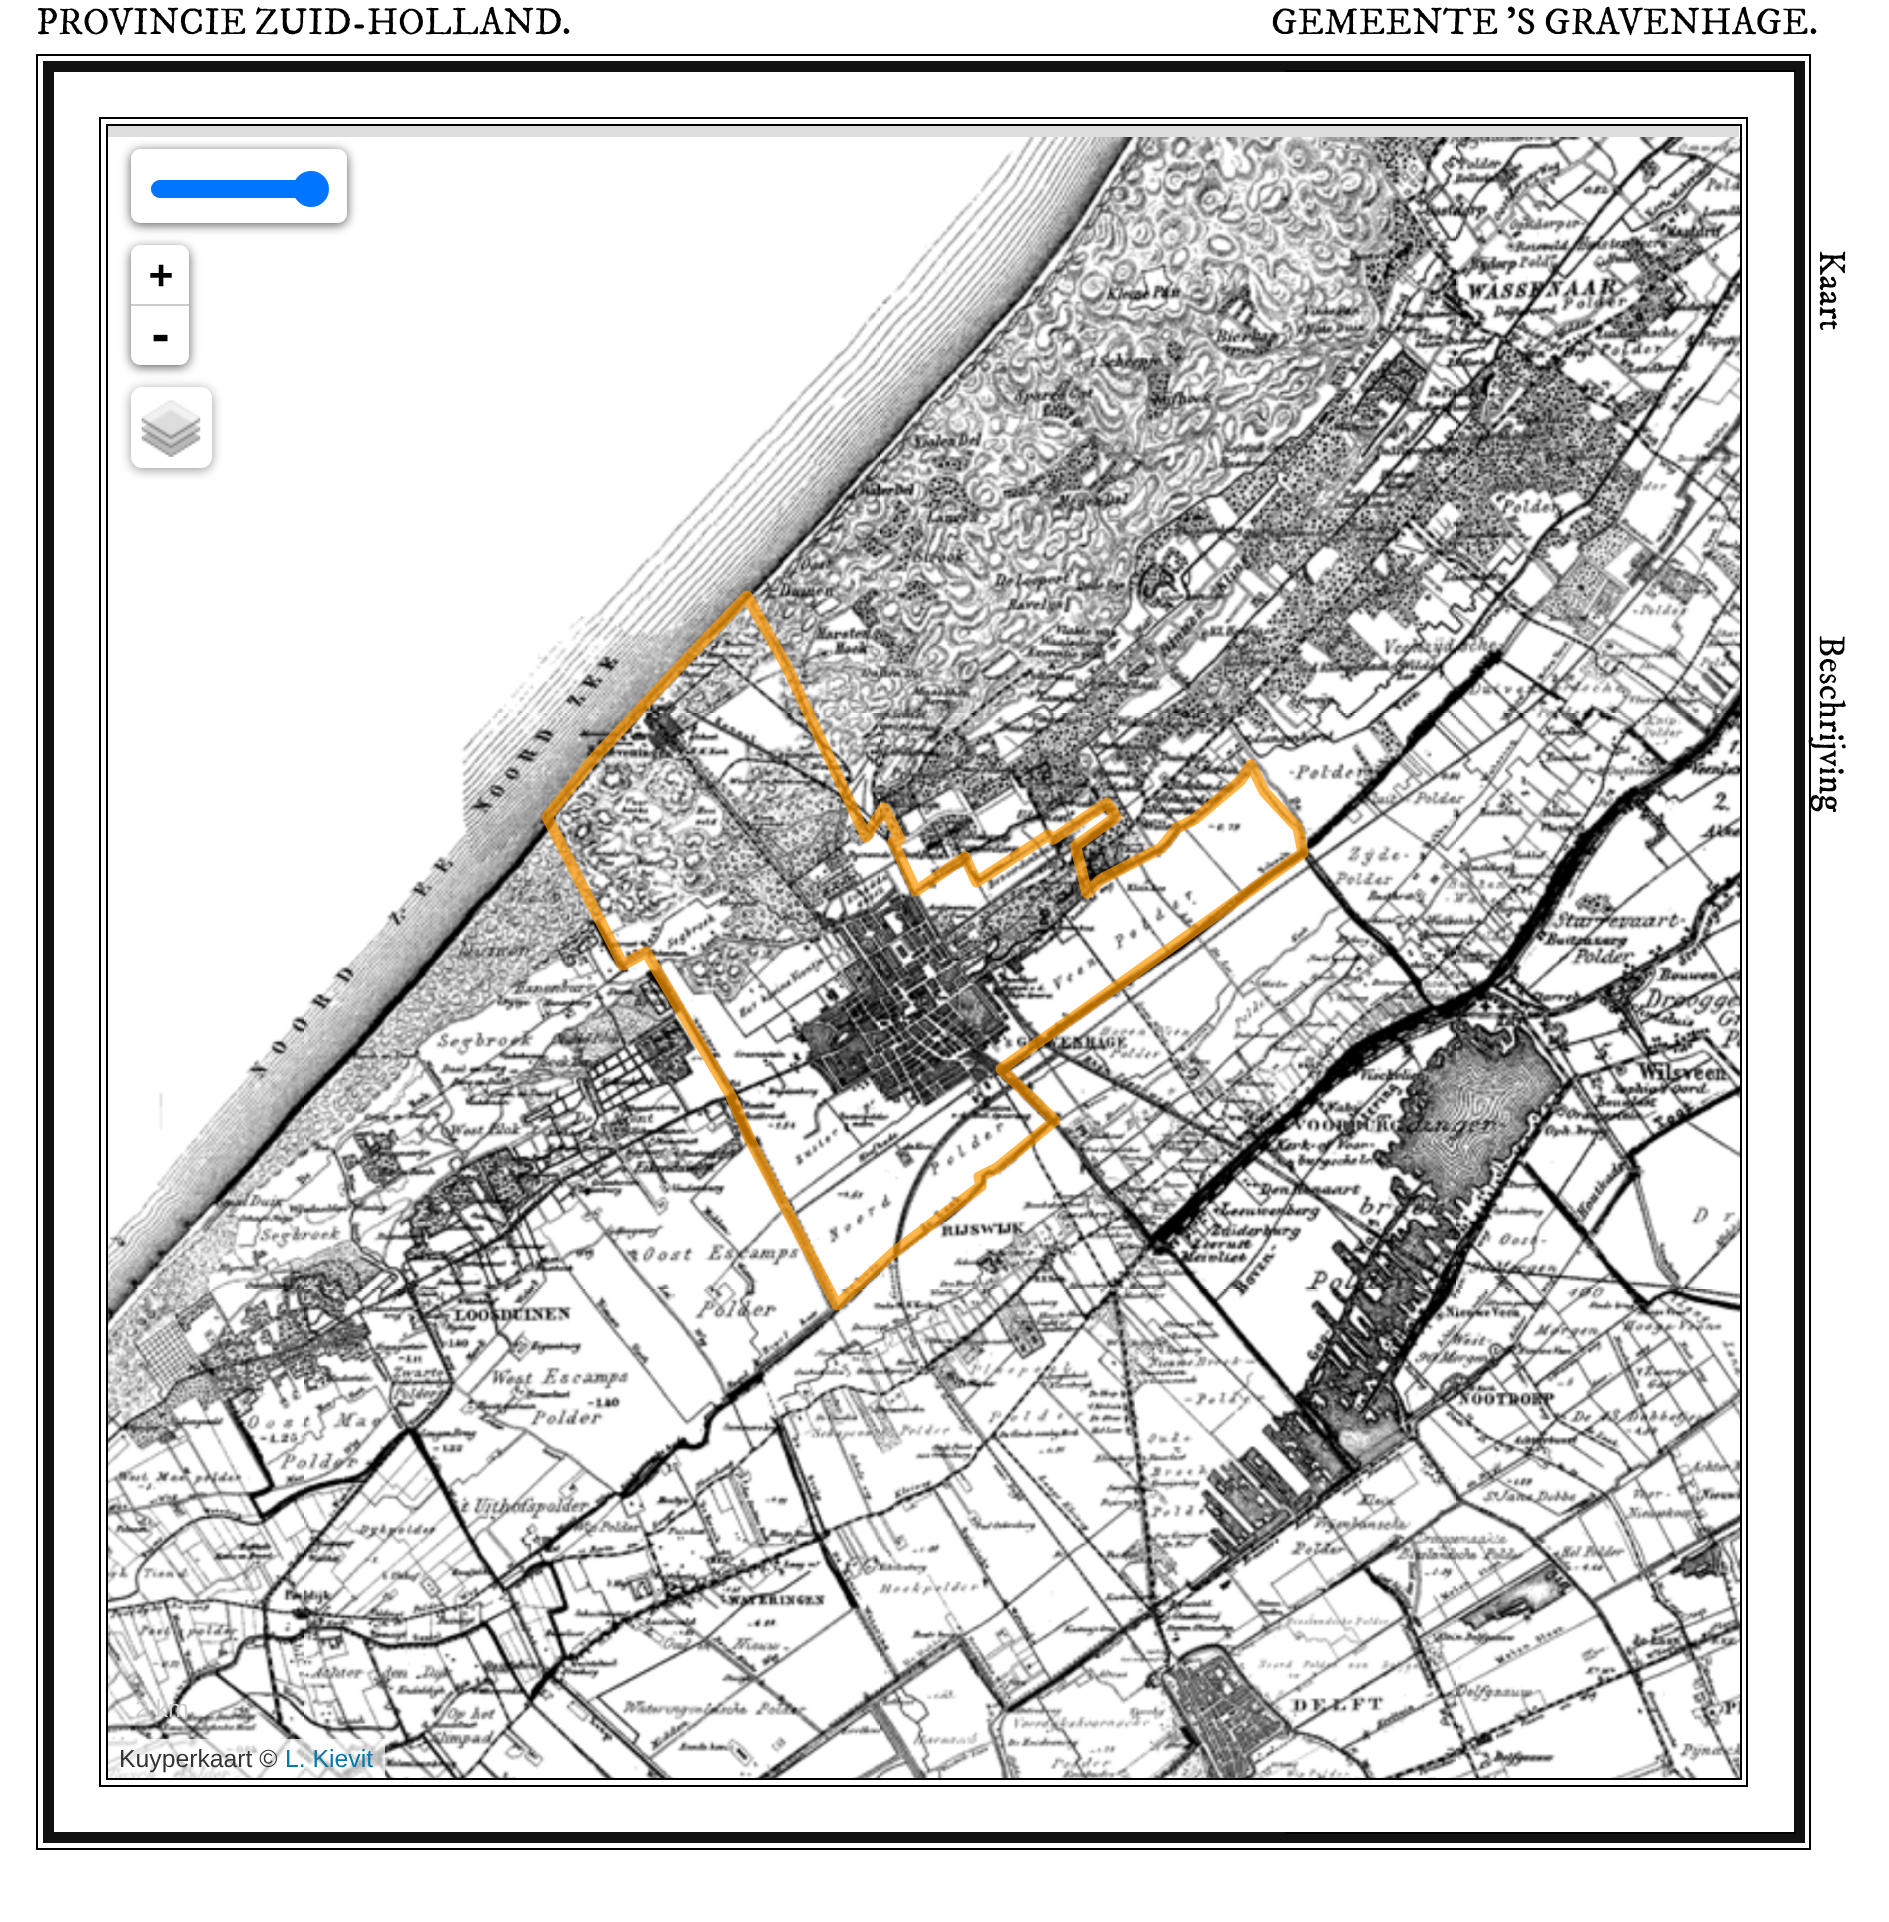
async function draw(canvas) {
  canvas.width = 1889
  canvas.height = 1922
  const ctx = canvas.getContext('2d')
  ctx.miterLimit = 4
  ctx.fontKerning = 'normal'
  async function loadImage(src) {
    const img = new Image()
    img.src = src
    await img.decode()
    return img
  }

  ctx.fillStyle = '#fff'
  ctx.fillRect(0, 0, 1889, 1922)
  ctx.font = '37.75px IM FELL DW Pica'
  ctx.fillStyle = '#000'
  ctx.fillText('PROVINCIE ZUID-HOLLAND', 36, 34)
  ctx.fillText('.', 562, 34)
  ctx.fillText('GEMEENTE \'S GRAVENHAGE', 1271, 34)
  ctx.fillText('.', 1809, 34)
  ctx.strokeStyle = '#000'
  ctx.lineWidth = 2
  ctx.strokeRect(37, 55, 1773, 1794)
  ctx.strokeStyle = '#111'
  ctx.lineWidth = 11
  ctx.strokeRect(48.5, 66.5, 1751, 1771)
  ctx.strokeStyle = '#000'
  ctx.lineWidth = 2
  ctx.strokeRect(100, 118, 1647, 1668)
  ctx.strokeRect(107, 125, 1634, 1654)
  ctx.fillRect(1285, 70, 511, 2)
  ctx.fillStyle = '#ddd'
  ctx.fillRect(108, 126, 1631, 11)
  ctx.drawImage(await loadImage('image0.png'), 304, 137, 576, 576)
  ctx.drawImage(await loadImage('image1.png'), 880, 137, 576, 576)
  ctx.drawImage(await loadImage('image2.png'), 1456, 137, 284, 576)
  ctx.drawImage(await loadImage('image3.png'), 108, 713, 196, 576)
  ctx.drawImage(await loadImage('image4.png'), 304, 713, 576, 576)
  ctx.drawImage(await loadImage('image5.png'), 880, 713, 576, 576)
  ctx.drawImage(await loadImage('image6.png'), 1456, 713, 284, 576)
  ctx.drawImage(await loadImage('image7.png'), 108, 1289, 196, 489)
  ctx.drawImage(await loadImage('image8.png'), 304, 1289, 576, 489)
  ctx.drawImage(await loadImage('image9.png'), 880, 1289, 576, 489)
  ctx.drawImage(await loadImage('image10.png'), 1456, 1289, 284, 489)
  ctx.beginPath()
  ctx.moveTo(747, 596)
  ctx.lineTo(787.5, 668)
  ctx.lineTo(866, 837)
  ctx.lineTo(884, 808)
  ctx.lineTo(900, 839)
  ctx.lineTo(893, 841.5)
  ctx.lineTo(916, 891)
  ctx.lineTo(965, 857)
  ctx.lineTo(976.5, 882)
  ctx.lineTo(1048.5, 835)
  ctx.lineTo(1053, 839)
  ctx.lineTo(1107, 803)
  ctx.lineTo(1116, 817)
  ctx.lineTo(1075.5, 846)
  ctx.lineTo(1087, 893)
  ctx.lineTo(1100, 880)
  ctx.lineTo(1161, 848)
  ctx.lineTo(1177, 828)
  ctx.lineTo(1195, 819)
  ctx.lineTo(1240, 781)
  ctx.lineTo(1251, 765)
  ctx.lineTo(1264.5, 792)
  ctx.lineTo(1298, 828)
  ctx.lineTo(1303, 853)
  ctx.lineTo(1001, 1069)
  ctx.lineTo(1055, 1120.5)
  ctx.lineTo(997, 1168)
  ctx.lineTo(979, 1177)
  ctx.lineTo(981, 1186)
  ctx.lineTo(893, 1253)
  ctx.lineTo(837, 1305)
  ctx.lineTo(751.5, 1143)
  ctx.lineTo(731, 1096)
  ctx.lineTo(646, 952)
  ctx.lineTo(623, 965)
  ctx.lineTo(547, 817)
  ctx.lineTo(592, 760.5)
  ctx.lineTo(682, 664)
  ctx.closePath()
  ctx.strokeStyle = '#ff9900b3'
  ctx.lineWidth = 11.2
  ctx.lineCap = 'round'
  ctx.lineJoin = 'round'
  ctx.stroke()
  ctx.fillStyle = '#000000a6'
  ctx.filter = 'blur(5.5px)'
  ctx.beginPath()
  ctx.roundRect(131, 151, 216, 74, 9)
  ctx.fill()
  ctx.filter = 'none'
  ctx.fillStyle = '#fff'
  ctx.beginPath()
  ctx.roundRect(131, 149, 216, 74, 9)
  ctx.fill()
  ctx.beginPath()
  ctx.roundRect(152, 181, 173, 16, 8)
  ctx.strokeStyle = '#b2b2b2'
  ctx.lineWidth = 2
  ctx.lineJoin = 'miter'
  ctx.stroke()
  ctx.fillStyle = '#0075ff'
  ctx.beginPath()
  ctx.roundRect(151, 180, 160, 18, [9, 0, 0, 9])
  ctx.fill()
  ctx.beginPath()
  ctx.arc(311, 189, 18, 0, 2 * Math.PI)
  ctx.fill()
  ctx.fillStyle = '#000000a6'
  ctx.filter = 'blur(5.5px)'
  ctx.beginPath()
  ctx.roundRect(131, 248, 58, 119, 9)
  ctx.fill()
  ctx.filter = 'none'
  ctx.fillStyle = '#fff'
  ctx.beginPath()
  ctx.roundRect(131, 245, 58, 61, [9, 9, 0, 0])
  ctx.fill()
  ctx.fillStyle = '#ccc'
  ctx.fillRect(131, 304, 58, 2)
  ctx.font = 'bold 40px DejaVu Sans Mono'
  ctx.fillStyle = '#000'
  ctx.fillText('+', 149, 288)
  ctx.fillStyle = '#fff'
  ctx.beginPath()
  ctx.roundRect(131, 306, 58, 59, [0, 0, 9, 9])
  ctx.fill()
  ctx.font = 'bold 45px DejaVu Sans Mono'
  ctx.fillStyle = '#000'
  ctx.fillText('-', 147, 351)
  ctx.fillStyle = '#00000066'
  ctx.filter = 'blur(5.5px)'
  ctx.beginPath()
  ctx.roundRect(131, 389, 81, 81, 11)
  ctx.fill()
  ctx.filter = 'none'
  ctx.fillStyle = '#fff'
  ctx.beginPath()
  ctx.roundRect(131, 387, 81, 81, 11)
  ctx.fill()
  ctx.drawImage(await loadImage('image11.png'), 141, 400, 60, 57)
  ctx.font = '24.75px Liberation Sans'
  ctx.fillStyle = '#cdcdcd'
  ctx.fillText('2 km', 135, 1717)
  ctx.fillStyle = '#ffffffb3'
  ctx.fillRect(108, 1739, 277, 39)
  ctx.fillStyle = '#333'
  ctx.fillText('Kuyperkaart ©', 119, 1767)
  ctx.fillStyle = '#0078a8'
  ctx.fillText('L. Kievit', 285, 1767)
  ctx.fillStyle = '#000'
  ctx.fillRect(1285, 1832, 511, 2)
  ctx.font = '36px IM FELL DW Pica'
  ctx.save()
  ctx.translate(1820, 250)
  ctx.rotate(90 * Math.PI / 180)
  ctx.fillText('Kaart', 0, 0)
  ctx.restore()
  ctx.save()
  ctx.translate(1820, 635)
  ctx.rotate(90 * Math.PI / 180)
  ctx.fillText('Beschrijving', 0, 0)
  ctx.restore()
}

draw(document.querySelector('canvas'))
